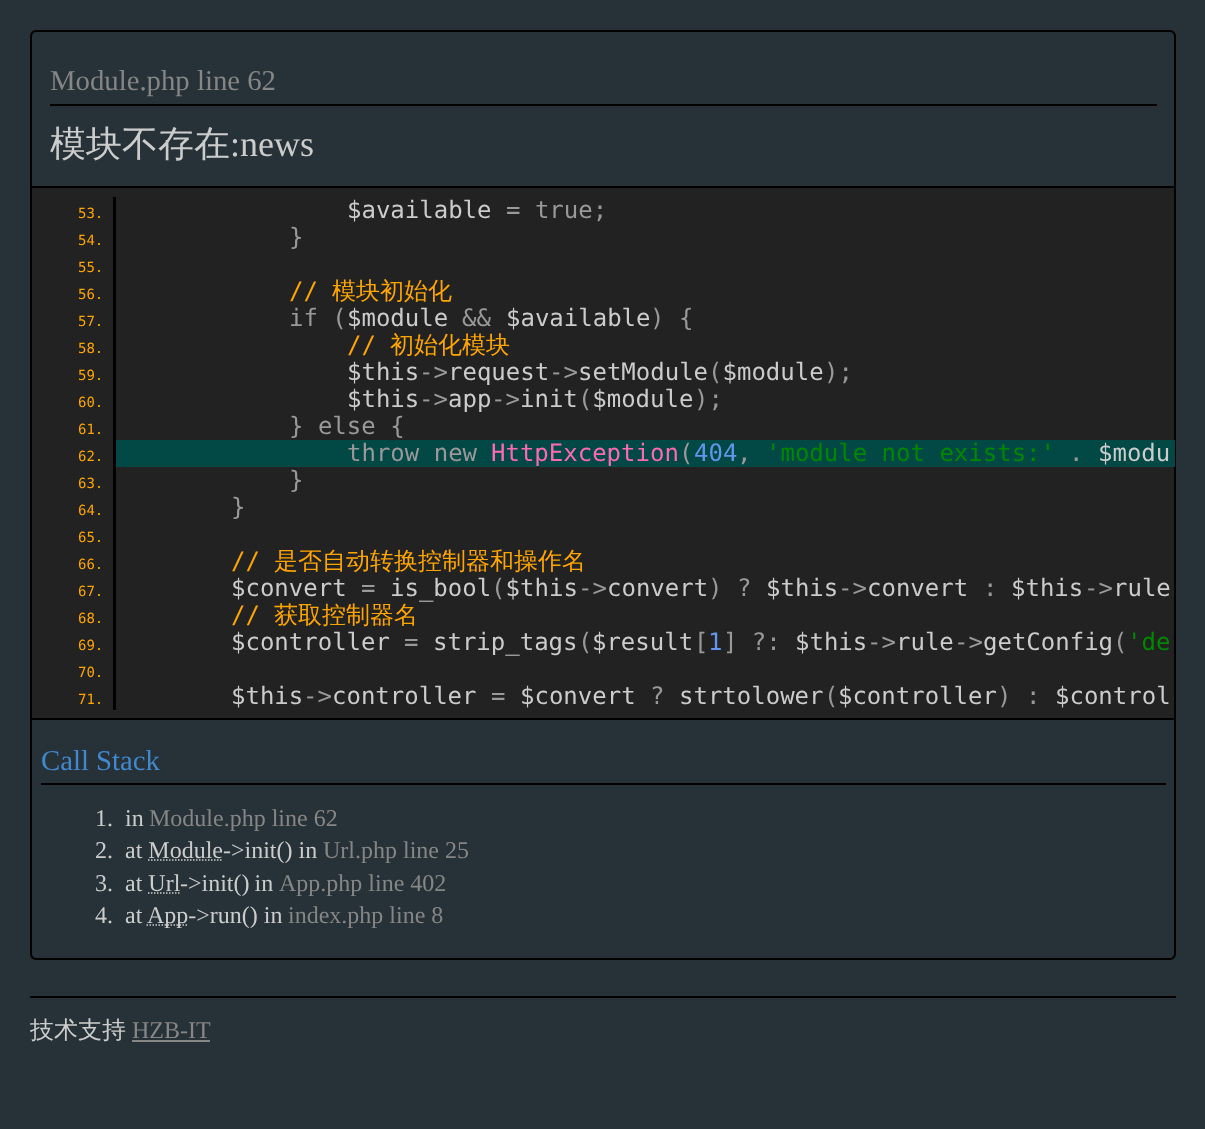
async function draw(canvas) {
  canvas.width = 1205
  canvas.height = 1129
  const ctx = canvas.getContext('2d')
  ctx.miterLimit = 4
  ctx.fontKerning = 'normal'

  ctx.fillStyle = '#263238'
  ctx.fillRect(0, 0, 1205, 1129)
  ctx.fillStyle = '#000'
  ctx.beginPath()
  ctx.moveTo(36, 30)
  ctx.lineTo(1170, 30)
  ctx.bezierCurveTo(1173, 30, 1176, 33, 1176, 36)
  ctx.lineTo(1176, 186)
  ctx.lineTo(30, 186)
  ctx.lineTo(30, 36)
  ctx.bezierCurveTo(30, 33, 33, 30, 36, 30)
  ctx.closePath()
  ctx.moveTo(36, 32)
  ctx.lineTo(1170, 32)
  ctx.bezierCurveTo(1172, 32, 1174, 34, 1174, 36)
  ctx.lineTo(1174, 186)
  ctx.lineTo(32, 186)
  ctx.lineTo(32, 36)
  ctx.bezierCurveTo(32, 34, 34, 32, 36, 32)
  ctx.closePath()
  ctx.fill('evenodd')
  ctx.fillRect(50, 104, 1107, 2)
  ctx.font = '28.75px Liberation Serif'
  ctx.fillStyle = '#868686'
  ctx.fillText('Module.php line 62', 50, 90)
  ctx.font = '500 36px WenQuanYi Zen Hei'
  ctx.fillStyle = '#ccc'
  ctx.fillText('模块不存在', 50, 156)
  ctx.font = '36px Liberation Serif'
  ctx.fillText(':news', 230, 156)
  ctx.fillStyle = '#222'
  ctx.beginPath()
  ctx.rect(31, 187, 1144, 532)
  ctx.fill()
  ctx.strokeStyle = '#000'
  ctx.lineWidth = 2
  ctx.stroke()
  ctx.fillStyle = '#000'
  ctx.fillRect(113, 197, 1, 513)
  ctx.font = '14px DejaVu Sans Mono'
  ctx.fillStyle = '#ffa500'
  ctx.fillText('53.', 78, 218)
  ctx.fillStyle = '#000'
  ctx.fillRect(114, 197, 2, 513)
  ctx.font = '24px DejaVu Sans Mono'
  ctx.fillStyle = '#ccc'
  ctx.fillText('$available', 347, 218)
  ctx.fillStyle = '#999'
  ctx.fillText('= true;', 506, 218)
  ctx.font = '14px DejaVu Sans Mono'
  ctx.fillStyle = '#ffa500'
  ctx.fillText('54.', 78, 245)
  ctx.font = '24px DejaVu Sans Mono'
  ctx.fillStyle = '#999'
  ctx.fillText('}', 289, 245)
  ctx.font = '14px DejaVu Sans Mono'
  ctx.fillStyle = '#ffa500'
  ctx.fillText('55.', 78, 272)
  ctx.fillText('56.', 78, 299)
  ctx.font = '24px DejaVu Sans Mono'
  ctx.fillText('//', 289, 299)
  ctx.font = '500 24px WenQuanYi Zen Hei'
  ctx.fillText('模块初始化', 332, 299)
  ctx.font = '14px DejaVu Sans Mono'
  ctx.fillText('57.', 78, 326)
  ctx.font = '24px DejaVu Sans Mono'
  ctx.fillStyle = '#999'
  ctx.fillText('if (', 289, 326)
  ctx.fillStyle = '#ccc'
  ctx.fillText('$module', 347, 326)
  ctx.fillStyle = '#999'
  ctx.fillText('&&', 462, 326)
  ctx.fillStyle = '#ccc'
  ctx.fillText('$available', 506, 326)
  ctx.fillStyle = '#999'
  ctx.fillText(') {', 650, 326)
  ctx.font = '14px DejaVu Sans Mono'
  ctx.fillStyle = '#ffa500'
  ctx.fillText('58.', 78, 353)
  ctx.font = '24px DejaVu Sans Mono'
  ctx.fillText('//', 347, 353)
  ctx.font = '500 24px WenQuanYi Zen Hei'
  ctx.fillText('初始化模块', 390, 353)
  ctx.font = '14px DejaVu Sans Mono'
  ctx.fillText('59.', 78, 380)
  ctx.font = '24px DejaVu Sans Mono'
  ctx.fillStyle = '#ccc'
  ctx.fillText('$this', 347, 380)
  ctx.fillText('setModule $module', 578, 380)
  ctx.fillStyle = '#999'
  ctx.fillText('->', 419, 380)
  ctx.fillStyle = '#ccc'
  ctx.fillText('request', 448, 380)
  ctx.fillStyle = '#999'
  ctx.fillText('->', 549, 380)
  ctx.fillText('(', 708, 380)
  ctx.fillText(');', 824, 380)
  ctx.font = '14px DejaVu Sans Mono'
  ctx.fillStyle = '#ffa500'
  ctx.fillText('60.', 78, 407)
  ctx.font = '24px DejaVu Sans Mono'
  ctx.fillStyle = '#ccc'
  ctx.fillText('$this', 347, 407)
  ctx.fillText('init $module', 520, 407)
  ctx.fillStyle = '#999'
  ctx.fillText('->', 419, 407)
  ctx.fillStyle = '#ccc'
  ctx.fillText('app', 448, 407)
  ctx.fillStyle = '#999'
  ctx.fillText('->', 491, 407)
  ctx.fillText('(', 578, 407)
  ctx.fillText(');', 694, 407)
  ctx.font = '14px DejaVu Sans Mono'
  ctx.fillStyle = '#ffa500'
  ctx.fillText('61.', 78, 434)
  ctx.font = '24px DejaVu Sans Mono'
  ctx.fillStyle = '#999'
  ctx.fillText('} else {', 289, 434)
  ctx.fillStyle = '#024946'
  ctx.fillRect(116, 440, 1059, 27)
  ctx.font = '14px DejaVu Sans Mono'
  ctx.fillStyle = '#ffa500'
  ctx.fillText('62.', 78, 461)
  ctx.font = '24px DejaVu Sans Mono'
  ctx.fillStyle = '#999'
  ctx.fillText('throw new', 347, 461)
  ctx.fillStyle = '#ff69b4'
  ctx.fillText('HttpException', 491, 461)
  ctx.fillStyle = '#999'
  ctx.fillText('(', 679, 461)
  ctx.fillStyle = '#6495ed'
  ctx.fillText('404', 694, 461)
  ctx.fillStyle = '#999'
  ctx.fillText(',', 737, 461)
  ctx.fillStyle = '#080'
  ctx.fillText('\'module not exists:\'', 766, 461)
  ctx.fillStyle = '#999'
  ctx.fillText('.', 1069, 461)
  ctx.fillStyle = '#ccc'
  ctx.fillText('$modu', 1098, 461)
  ctx.font = '14px DejaVu Sans Mono'
  ctx.fillStyle = '#ffa500'
  ctx.fillText('63.', 78, 488)
  ctx.font = '24px DejaVu Sans Mono'
  ctx.fillStyle = '#999'
  ctx.fillText('}', 289, 488)
  ctx.font = '14px DejaVu Sans Mono'
  ctx.fillStyle = '#ffa500'
  ctx.fillText('64.', 78, 515)
  ctx.font = '24px DejaVu Sans Mono'
  ctx.fillStyle = '#999'
  ctx.fillText('}', 231, 515)
  ctx.font = '14px DejaVu Sans Mono'
  ctx.fillStyle = '#ffa500'
  ctx.fillText('65.', 78, 542)
  ctx.fillText('66.', 78, 569)
  ctx.font = '24px DejaVu Sans Mono'
  ctx.fillText('//', 231, 569)
  ctx.font = '500 24px WenQuanYi Zen Hei'
  ctx.fillText('是否自动转换控制器和操作名', 274, 569)
  ctx.font = '14px DejaVu Sans Mono'
  ctx.fillText('67.', 78, 596)
  ctx.font = '24px DejaVu Sans Mono'
  ctx.fillStyle = '#ccc'
  ctx.fillText('$convert', 231, 596)
  ctx.fillText('is_bool $this', 390, 596)
  ctx.fillStyle = '#999'
  ctx.fillText('=', 361, 596)
  ctx.fillText('(', 491, 596)
  ctx.fillText('->', 578, 596)
  ctx.fillStyle = '#ccc'
  ctx.fillText('convert', 607, 596)
  ctx.fillStyle = '#999'
  ctx.fillText(') ?', 708, 596)
  ctx.fillStyle = '#ccc'
  ctx.fillText('$this', 766, 596)
  ctx.fillStyle = '#999'
  ctx.fillText('->', 838, 596)
  ctx.fillStyle = '#ccc'
  ctx.fillText('convert', 867, 596)
  ctx.fillStyle = '#999'
  ctx.fillText(':', 983, 596)
  ctx.fillStyle = '#ccc'
  ctx.fillText('$this', 1011, 596)
  ctx.fillStyle = '#999'
  ctx.fillText('->', 1084, 596)
  ctx.fillStyle = '#ccc'
  ctx.fillText('rule', 1113, 596)
  ctx.font = '14px DejaVu Sans Mono'
  ctx.fillStyle = '#ffa500'
  ctx.fillText('68.', 78, 623)
  ctx.font = '24px DejaVu Sans Mono'
  ctx.fillText('//', 231, 623)
  ctx.font = '500 24px WenQuanYi Zen Hei'
  ctx.fillText('获取控制器名', 274, 623)
  ctx.font = '14px DejaVu Sans Mono'
  ctx.fillText('69.', 78, 650)
  ctx.font = '24px DejaVu Sans Mono'
  ctx.fillStyle = '#ccc'
  ctx.fillText('$controller', 231, 650)
  ctx.fillText('strip_tags $result', 433, 650)
  ctx.fillStyle = '#999'
  ctx.fillText('(', 578, 650)
  ctx.fillText('[ ] ?:', 694, 650)
  ctx.fillStyle = '#ccc'
  ctx.fillText('$this', 795, 650)
  ctx.fillText('rule', 896, 650)
  ctx.fillText('getConfig', 983, 650)
  ctx.fillStyle = '#999'
  ctx.fillText('(', 1113, 650)
  ctx.fillStyle = '#080'
  ctx.fillText('\'de', 1127, 650)
  ctx.fillStyle = '#999'
  ctx.fillText('=', 404, 650)
  ctx.fillStyle = '#6495ed'
  ctx.fillText('1', 708, 650)
  ctx.fillStyle = '#999'
  ctx.fillText('->', 867, 650)
  ctx.fillText('->', 954, 650)
  ctx.font = '14px DejaVu Sans Mono'
  ctx.fillStyle = '#ffa500'
  ctx.fillText('70.', 78, 677)
  ctx.fillText('71.', 78, 704)
  ctx.font = '24px DejaVu Sans Mono'
  ctx.fillStyle = '#ccc'
  ctx.fillText('$this', 231, 704)
  ctx.fillText('controller', 332, 704)
  ctx.fillText('$convert', 520, 704)
  ctx.fillText('strtolower $controller', 679, 704)
  ctx.fillStyle = '#999'
  ctx.fillText('->', 303, 704)
  ctx.fillText('=', 491, 704)
  ctx.fillText('?', 650, 704)
  ctx.fillText('(', 824, 704)
  ctx.fillText(') :', 997, 704)
  ctx.fillStyle = '#ccc'
  ctx.fillText('$control', 1055, 704)
  ctx.fillStyle = '#000'
  ctx.beginPath()
  ctx.moveTo(30, 720)
  ctx.lineTo(1176, 720)
  ctx.lineTo(1176, 954)
  ctx.bezierCurveTo(1176, 957, 1173, 960, 1170, 960)
  ctx.lineTo(36, 960)
  ctx.bezierCurveTo(33, 960, 30, 957, 30, 954)
  ctx.closePath()
  ctx.moveTo(32, 720)
  ctx.lineTo(1174, 720)
  ctx.lineTo(1174, 954)
  ctx.bezierCurveTo(1174, 956, 1172, 958, 1170, 958)
  ctx.lineTo(36, 958)
  ctx.bezierCurveTo(34, 958, 32, 956, 32, 954)
  ctx.closePath()
  ctx.fill('evenodd')
  ctx.fillRect(41, 783, 1125, 2)
  ctx.font = '28.75px Liberation Serif'
  ctx.fillStyle = '#4288ce'
  ctx.fillText('Call Stack', 41, 770)
  ctx.font = '24px Liberation Serif'
  ctx.fillStyle = '#ccc'
  ctx.fillText('1.', 95, 826)
  ctx.fillText('in', 125, 826)
  ctx.fillStyle = '#868686'
  ctx.fillText('Module.php line 62', 149, 826)
  ctx.fillStyle = '#ccc'
  ctx.fillText('2.', 95, 858)
  ctx.fillText('at Module->init() in', 125, 858)
  ctx.fillStyle = '#868686'
  ctx.fillText('Url.php line 25', 323, 858)
  ctx.beginPath()
  ctx.moveTo(148, 860)
  ctx.lineTo(222.5, 860)
  ctx.strokeStyle = '#ccc'
  ctx.lineWidth = 1.5
  ctx.setLineDash([1.5, 1.5])
  ctx.stroke()
  ctx.fillStyle = '#ccc'
  ctx.fillText('3.', 95, 891)
  ctx.fillText('at Url', 125, 891)
  ctx.wordSpacing = '-1px'
  ctx.fillText('->init() in', 180, 891)
  ctx.wordSpacing = '0px'
  ctx.fillStyle = '#868686'
  ctx.fillText('App.php line 402', 279, 891)
  ctx.beginPath()
  ctx.moveTo(148, 893)
  ctx.lineTo(180, 893)
  ctx.stroke()
  ctx.fillStyle = '#ccc'
  ctx.fillText('4.', 95, 923)
  ctx.fillText('at', 125, 923)
  ctx.beginPath()
  ctx.moveTo(146.5, 925)
  ctx.lineTo(188, 925)
  ctx.stroke()
  ctx.fillText('App->run() in', 147, 923)
  ctx.fillStyle = '#868686'
  ctx.fillText('index.php line 8', 288, 923)
  ctx.fillStyle = '#000'
  ctx.fillRect(30, 996, 1146, 2)
  ctx.font = '500 24px WenQuanYi Zen Hei'
  ctx.fillStyle = '#ccc'
  ctx.fillText('技术支持', 30, 1038)
  ctx.font = '24px Liberation Serif'
  ctx.fillStyle = '#868686'
  ctx.fillText('HZB-IT', 132, 1038)
  ctx.fillRect(132, 1040, 78, 2)
}

draw(document.querySelector('canvas'))
